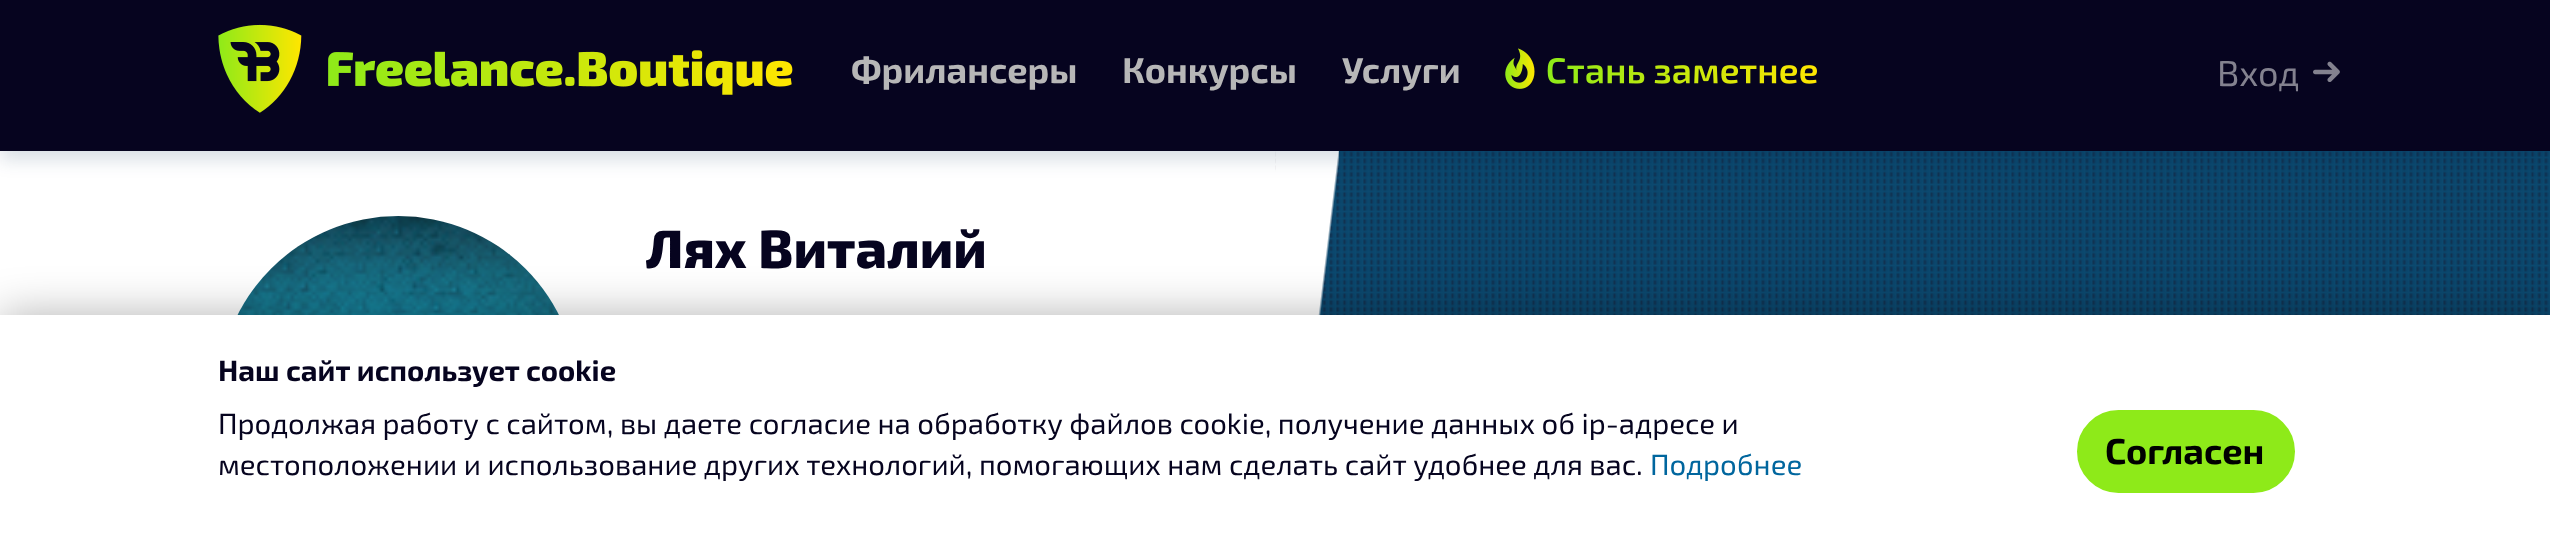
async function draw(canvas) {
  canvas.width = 2550
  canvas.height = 550
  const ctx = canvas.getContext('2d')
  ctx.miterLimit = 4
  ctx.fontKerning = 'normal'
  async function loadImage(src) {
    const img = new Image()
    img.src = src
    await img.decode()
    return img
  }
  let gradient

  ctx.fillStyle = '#fff'
  ctx.fillRect(0, 0, 2550, 550)
  ctx.fillStyle = '#0c496f'
  ctx.fillRect(1318, 151, 1232, 164)
  ctx.drawImage(await loadImage('image4.png'), 1275, 151, 1274, 164)
  ctx.fillStyle = '#fff'
  ctx.fillRect(1275, 172, 1, 143)
  gradient = ctx.createLinearGradient(1245, 411, 1369, 426)
  gradient.addColorStop(0.49, '#fff')
  gradient.addColorStop(0.51, '#ffffff00')
  ctx.fillStyle = gradient
  ctx.fillRect(1276, 151, 63, 164)
  ctx.fillStyle = '#00255026'
  ctx.filter = 'blur(9px)'
  ctx.beginPath()
  ctx.rect(0, 9, 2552, 151)
  ctx.fill()
  ctx.filter = 'none'
  ctx.fillStyle = '#06041f'
  ctx.fillRect(0, 0, 2550, 151)
  ctx.drawImage(await loadImage('image0.png'), 218, 24, 575, 89)
  ctx.font = 'bold 36px "Exo 2"'
  ctx.fillStyle = '#b7b7b7'
  ctx.fillText('Фрилансеры', 851, 83)
  ctx.fillText('Конкурсы', 1122, 83)
  ctx.fillText('Услуги', 1342, 83)
  ctx.drawImage(await loadImage('image1.png'), 1505, 48, 312, 41)
  ctx.font = '36px "Exo 2"'
  ctx.fillStyle = '#83828f'
  ctx.fillText('Вход', 2217, 86)
  ctx.drawImage(await loadImage('image2.png'), 2313, 61, 27, 21)
  ctx.drawImage(await loadImage('image3.png'), 237, 216, 322, 99)
  ctx.save()
  ctx.beginPath()
  ctx.rect(646, 216, 551, 65)
  ctx.clip()
  ctx.font = '800 54px "Exo 2"'
  ctx.fillStyle = '#06041f'
  ctx.fillText('Лях Виталий', 646, 268)
  ctx.restore()
  ctx.fillStyle = '#0000004d'
  ctx.filter = 'blur(22.5px)'
  ctx.beginPath()
  ctx.rect(0, 315, 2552, 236)
  ctx.fill()
  ctx.filter = 'none'
  ctx.fillStyle = '#fff'
  ctx.fillRect(0, 315, 2550, 235)
  ctx.font = 'bold 29.25px "Exo 2"'
  ctx.fillStyle = '#06041f'
  ctx.fillText('Наш сайт использует cookie', 218, 381)
  ctx.font = '29.25px "Exo 2"'
  ctx.fillText('Продолжая работу с сайтом, вы даете согласие на обработку файлов cookie, получение данных об ip-адресе и', 218, 434)
  ctx.fillText('местоположении и использование других технологий, помогающих нам сделать сайт удобнее для вас.', 218, 475)
  ctx.fillStyle = '#00669e'
  ctx.fillText('Подробнее', 1650, 475)
  ctx.fillStyle = '#8eea19'
  ctx.beginPath()
  ctx.roundRect(2078, 411, 216, 81, 40.5)
  ctx.fill()
  ctx.strokeStyle = '#8eea19'
  ctx.lineWidth = 2
  ctx.stroke()
  ctx.font = 'bold 36px "Exo 2"'
  ctx.fillStyle = '#000'
  ctx.fillText('Согласен', 2105, 464)
}

draw(document.querySelector('canvas'))
